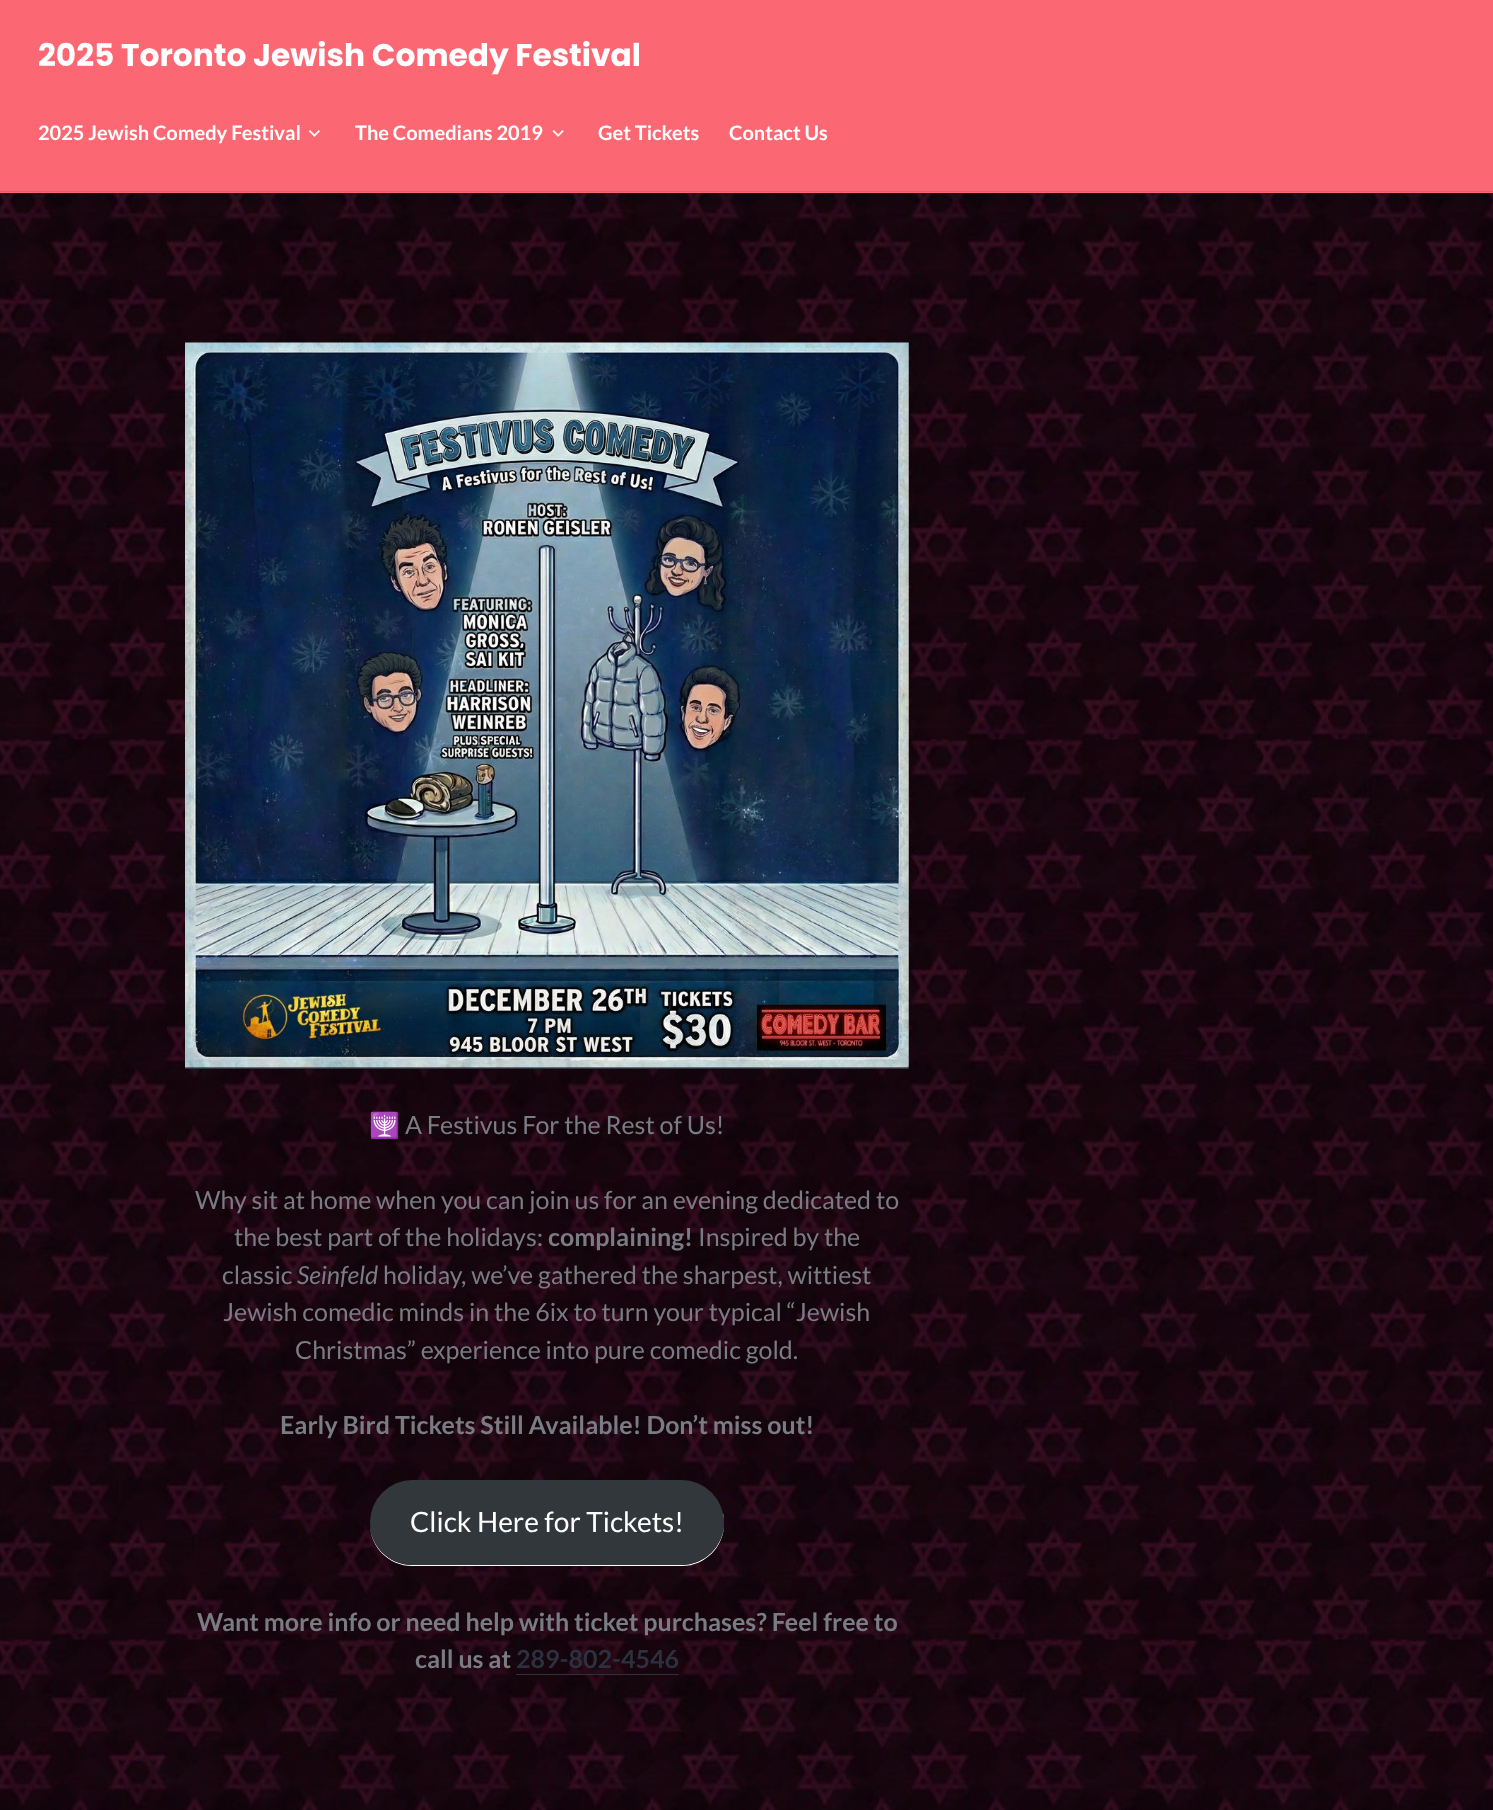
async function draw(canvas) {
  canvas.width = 1493
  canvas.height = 1810
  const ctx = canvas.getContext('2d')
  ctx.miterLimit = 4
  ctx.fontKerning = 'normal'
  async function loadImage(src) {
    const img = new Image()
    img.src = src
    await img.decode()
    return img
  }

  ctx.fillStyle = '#fff'
  ctx.fillRect(0, 0, 1493, 1810)
  ctx.drawImage(await loadImage('image0.png'), 0, 193, 1493, 1617)
  ctx.fillStyle = '#fb6874'
  ctx.fillRect(0, 0, 1493, 193)
  ctx.fillStyle = '#e25e68'
  ctx.fillRect(0, 191, 1493, 1)
  ctx.font = 'bold 31.25px Poppins'
  ctx.fillStyle = '#fff'
  ctx.fillText('2025 Toronto Jewish Comedy Festival', 38, 66)
  ctx.font = 'bold 20px Lato'
  ctx.fillText('2025 Jewish Comedy Festival', 38, 140)
  ctx.drawImage(await loadImage('image1.png'), 308, 130, 12, 7)
  ctx.fillText('The Comedians 2019', 355, 140)
  ctx.drawImage(await loadImage('image2.png'), 552, 130, 12, 7)
  ctx.fillText('Get Tickets', 598, 140)
  ctx.fillText('Contact Us', 729, 140)
  ctx.fillStyle = '#2c313f'
  ctx.beginPath()
  ctx.moveTo(185, 1068)
  ctx.lineTo(185, 1069)
  ctx.lineTo(909, 1069)
  ctx.lineTo(909, 344)
  ctx.lineTo(909, 1068)
  ctx.closePath()
  ctx.fill()
  ctx.drawImage(await loadImage('image3.png'), 185, 342, 724, 726)
  ctx.font = '25px Noto Color Emoji'
  ctx.fillStyle = '#7a7c84'
  ctx.fillText('🕎', 369, 1134)
  ctx.font = '25px Lato'
  ctx.fillText('A Festivus For the Rest of Us!', 405, 1134)
  ctx.fillText('Why sit at home when you can join us for an evening dedicated to', 195, 1209)
  ctx.fillText('the best part of the holidays:', 234, 1246)
  ctx.font = 'bold 25px Lato'
  ctx.fillText('complaining!', 548, 1246)
  ctx.font = '25px Lato'
  ctx.fillText('Inspired by the', 698, 1246)
  ctx.fillText('classic', 222, 1284)
  ctx.font = 'italic 25px Lato'
  ctx.fillText('Seinfeld', 297, 1284)
  ctx.font = '25px Lato'
  ctx.fillText('holiday, we’ve gathered the sharpest, wittiest', 383, 1284)
  ctx.fillText('Jewish comedic minds in the 6ix to turn your typical “Jewish', 223, 1321)
  ctx.fillText('Christmas” experience into pure comedic gold.', 295, 1359)
  ctx.font = 'bold 25px Lato'
  ctx.fillText('Early Bird Tickets Still Available! Don’t miss out!', 280, 1434)
  ctx.fillStyle = '#fff'
  ctx.beginPath()
  ctx.moveTo(370, 1523)
  ctx.lineTo(370, 1524)
  ctx.bezierCurveTo(370, 1547, 389, 1566, 412, 1566)
  ctx.lineTo(682, 1566)
  ctx.bezierCurveTo(705, 1566, 724, 1547, 724, 1524)
  ctx.bezierCurveTo(724, 1520, 724, 1516, 723, 1513)
  ctx.bezierCurveTo(723, 1516, 724, 1519, 724, 1522)
  ctx.bezierCurveTo(724, 1546, 705, 1565, 681, 1565)
  ctx.lineTo(412, 1565)
  ctx.bezierCurveTo(389, 1565, 370, 1546, 370, 1523)
  ctx.closePath()
  ctx.fill()
  ctx.fillStyle = '#32373c'
  ctx.beginPath()
  ctx.roundRect(370, 1480, 354, 85, 42.5)
  ctx.fill()
  ctx.font = '28.1px Lato'
  ctx.fillStyle = '#fff'
  ctx.fillText('Click Here for Tickets!', 410, 1532)
  ctx.font = 'bold 25px Lato'
  ctx.fillStyle = '#7a7c84'
  ctx.fillText('Want more info or need help with ticket purchases? Feel free to', 197, 1631)
  ctx.fillText('call us at', 415, 1668)
  ctx.fillStyle = '#2c313f'
  ctx.fillText('289-802-4546', 516, 1668)
  ctx.beginPath()
  ctx.moveTo(516, 1645)
  ctx.lineTo(516, 1675)
  ctx.lineTo(679, 1675)
  ctx.lineTo(679, 1645)
  ctx.lineTo(679, 1674)
  ctx.lineTo(516, 1674)
  ctx.closePath()
  ctx.fill()
}

draw(document.querySelector('canvas'))
